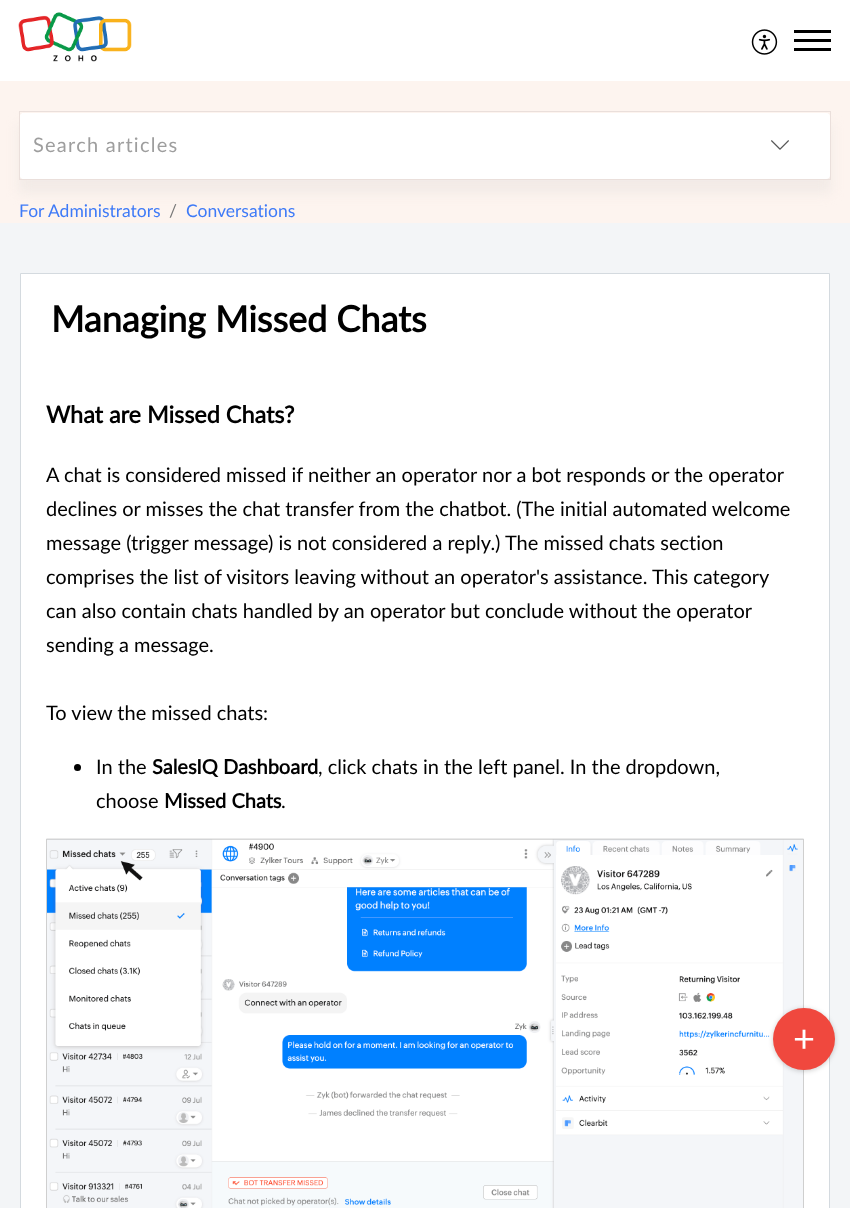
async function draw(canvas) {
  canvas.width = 850
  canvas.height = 1208
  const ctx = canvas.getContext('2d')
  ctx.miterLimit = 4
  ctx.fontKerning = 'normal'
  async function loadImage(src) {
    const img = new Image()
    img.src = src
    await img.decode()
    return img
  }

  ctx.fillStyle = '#f3f5f7'
  ctx.fillRect(0, 0, 850, 1208)
  ctx.fillStyle = '#fff'
  ctx.fillRect(0, 0, 850, 81)
  ctx.drawImage(await loadImage('image0.png'), 18, 12, 114, 50)
  ctx.drawImage(await loadImage('image1.png'), 751, 29, 27, 26)
  ctx.fillStyle = '#000'
  ctx.fillRect(794, 39, 37, 3)
  ctx.fillRect(794, 30, 37, 3)
  ctx.fillRect(794, 48, 37, 3)
  ctx.fillStyle = '#fdf4ef'
  ctx.fillRect(0, 81, 850, 142)
  ctx.fillStyle = '#f0e8e5d6'
  ctx.filter = 'blur(6px)'
  ctx.beginPath()
  ctx.rect(19, 124, 812, 69)
  ctx.fill()
  ctx.filter = 'none'
  ctx.strokeStyle = '#eadfdb'
  ctx.strokeRect(19.5, 111.5, 811, 68)
  ctx.fillStyle = '#fff'
  ctx.beginPath()
  ctx.roundRect(20, 113, 810, 66, 4)
  ctx.fill()
  ctx.beginPath()
  ctx.roundRect(20, 113, 710, 66, 4)
  ctx.fill()
  ctx.letterSpacing = '1.25px'
  ctx.font = '20px Lato'
  ctx.fillStyle = '#9e9e9e'
  ctx.fillText('Search articles', 33, 152)
  ctx.drawImage(await loadImage('image2.png'), 771, 140, 18, 10)
  ctx.fillStyle = '#fff'
  ctx.beginPath()
  ctx.rect(20.5, 273.5, 809, 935)
  ctx.fill()
  ctx.strokeStyle = '#d4dadf'
  ctx.stroke()
  ctx.drawImage(await loadImage('image3.png'), 46, 838, 758, 370)
  ctx.fillStyle = '#00000033'
  ctx.filter = 'blur(2.5px)'
  ctx.beginPath()
  ctx.roundRect(773, 1009, 62, 62, 31)
  ctx.fill()
  ctx.filter = 'none'
  ctx.fillStyle = '#f0483e'
  ctx.beginPath()
  ctx.arc(804, 1039, 31, 0, 2 * Math.PI)
  ctx.fill()
  ctx.letterSpacing = '0px'
  ctx.font = '38px Lato'
  ctx.fillStyle = '#fff'
  ctx.fillText('+', 793, 1052)
  ctx.font = '17.5px Lato'
  ctx.fillStyle = '#3e7af7'
  ctx.fillText('For Administrators', 19, 217)
  ctx.fillStyle = '#777'
  ctx.fillText('/', 169, 217)
  ctx.fillStyle = '#3e7af7'
  ctx.fillText('Conversations', 186, 217)
  ctx.font = 'bold 36px Lato'
  ctx.fillStyle = '#000'
  ctx.fillText('Managing Missed Chats', 51, 332)
  ctx.font = 'bold 23.4px Lato'
  ctx.fillText('What are Missed Chats?', 46, 423)
  ctx.font = '20px Lato'
  ctx.fillText('A chat is considered missed if neither an operator nor a bot responds or the operator', 46, 482)
  ctx.fillText('declines or misses the chat transfer from the chatbot. (The initial automated welcome', 46, 516)
  ctx.fillText('message (trigger message) is not considered a reply.) The missed chats section', 46, 550)
  ctx.fillText('comprises the list of visitors leaving without an operator\'s assistance. This category', 46, 584)
  ctx.fillText('can also contain chats handled by an operator but conclude without the operator', 46, 618)
  ctx.fillText('sending a message.', 46, 652)
  ctx.fillText('To view the missed chats:', 46, 720)
  ctx.beginPath()
  ctx.arc(77.5, 767.5, 3.5, 0, 2 * Math.PI)
  ctx.fill()
  ctx.fillText('In the', 96, 774)
  ctx.font = 'bold 20px Lato'
  ctx.fillText('SalesIQ Dashboard', 152, 774)
  ctx.font = '20px Lato'
  ctx.fillText(', click chats in the left panel. In the dropdown,', 318, 774)
  ctx.fillText('choose', 96, 808)
  ctx.font = 'bold 20px Lato'
  ctx.fillText('Missed Chats', 164, 808)
  ctx.font = '20px Lato'
  ctx.fillText('.', 281, 808)
}

draw(document.querySelector('canvas'))
